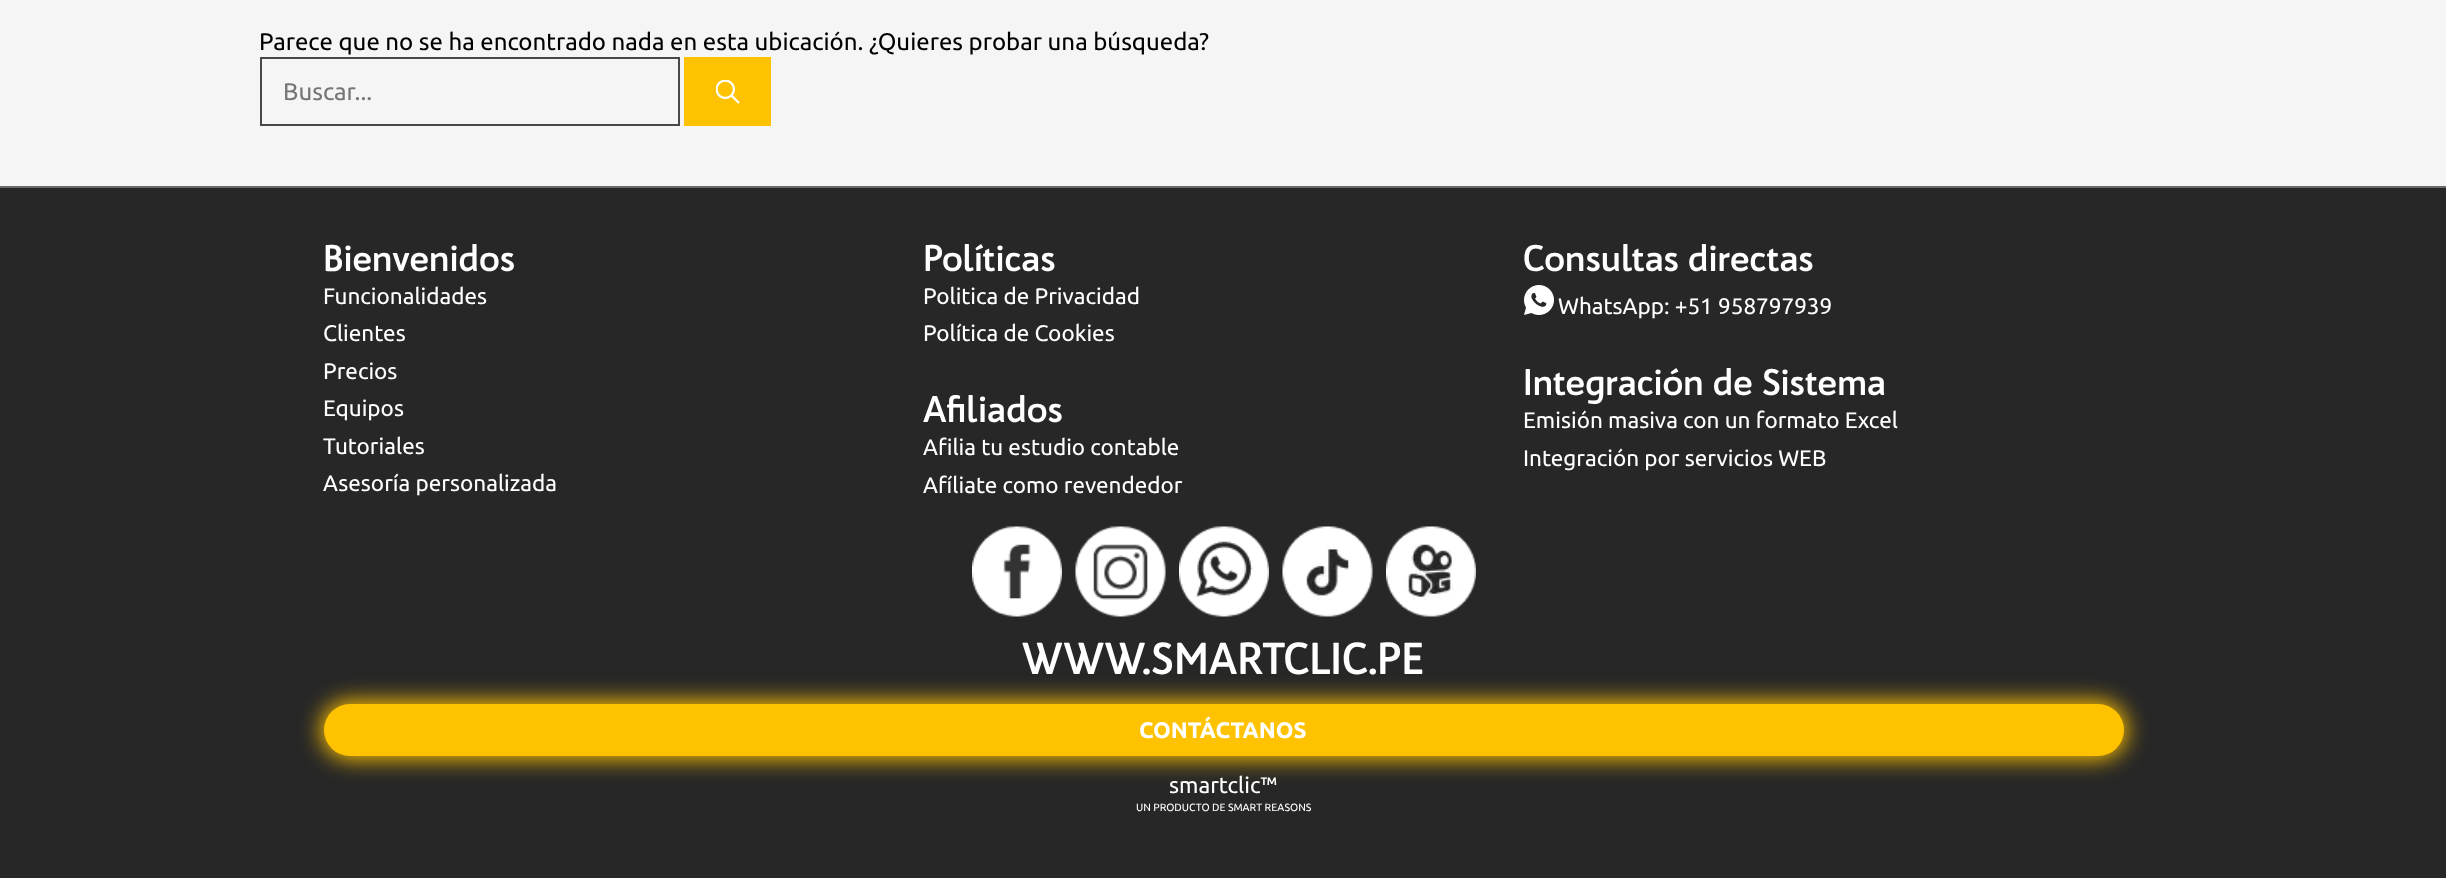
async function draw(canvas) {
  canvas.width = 2446
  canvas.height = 878
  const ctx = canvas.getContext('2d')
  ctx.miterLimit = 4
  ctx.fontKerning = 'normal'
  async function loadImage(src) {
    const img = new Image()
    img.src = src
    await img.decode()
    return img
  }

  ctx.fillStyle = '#f5f5f5'
  ctx.fillRect(0, 0, 2446, 878)
  ctx.font = '24px Ubuntu'
  ctx.fillStyle = '#000'
  ctx.fillText('Parece que no se ha encontrado nada en esta ubicación. ¿Quieres probar una búsqueda?', 259, 50)
  ctx.strokeStyle = '#484848'
  ctx.lineWidth = 2
  ctx.strokeRect(261, 58, 418, 67)
  ctx.fillStyle = '#757575'
  ctx.fillText('Buscar...', 283, 100)
  ctx.fillStyle = '#ffc200'
  ctx.fillRect(684, 57, 87, 69)
  ctx.drawImage(await loadImage('image0.png'), 716, 80, 24, 24)
  ctx.fillStyle = '#272727'
  ctx.fillRect(0, 188, 2446, 690)
  ctx.fillStyle = '#6a6a6a'
  ctx.fillRect(0, 186, 2446, 2)
  ctx.font = 'bold 36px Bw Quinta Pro'
  ctx.fillStyle = '#fff'
  ctx.fillText('Bienvenidos', 323, 271)
  ctx.font = '22.5px Ubuntu'
  ctx.fillText('Funcionalidades', 323, 304)
  ctx.fillText('Clientes', 323, 341)
  ctx.fillText('Precios', 323, 379)
  ctx.fillText('Equipos', 323, 416)
  ctx.fillText('Tutoriales', 323, 454)
  ctx.fillText('Asesoría personalizada', 323, 491)
  ctx.font = 'bold 36px Bw Quinta Pro'
  ctx.fillText('Políticas', 923, 271)
  ctx.font = '22.5px Ubuntu'
  ctx.fillText('Politica de Privacidad', 923, 304)
  ctx.fillText('Política de Cookies', 923, 341)
  ctx.font = 'bold 36px Bw Quinta Pro'
  ctx.fillText('Afiliados', 923, 422)
  ctx.font = '22.5px Ubuntu'
  ctx.fillText('Afilia tu estudio contable', 923, 455)
  ctx.fillText('Afíliate como revendedor', 923, 493)
  ctx.font = 'bold 36px Bw Quinta Pro'
  ctx.fillText('Consultas directas', 1523, 271)
  ctx.drawImage(await loadImage('image1.png'), 1524, 285, 30, 30)
  ctx.font = '22.5px Ubuntu'
  ctx.fillText('WhatsApp: +51 958797939', 1558, 314)
  ctx.font = 'bold 36px Bw Quinta Pro'
  ctx.fillText('Integración de Sistema', 1523, 395)
  ctx.font = '22.5px Ubuntu'
  ctx.fillText('Emisión masiva con un formato Excel', 1523, 428)
  ctx.fillText('Integración por servicios WEB', 1523, 466)
  ctx.drawImage(await loadImage('image2.png'), 972, 526, 90, 91)
  ctx.drawImage(await loadImage('image3.png'), 1075, 526, 91, 91)
  ctx.drawImage(await loadImage('image4.png'), 1179, 526, 90, 91)
  ctx.drawImage(await loadImage('image5.png'), 1282, 526, 91, 91)
  ctx.drawImage(await loadImage('image6.png'), 1386, 526, 90, 91)
  ctx.font = 'bold 43.5px Bw Quinta Pro'
  ctx.fillText('WWW.SMARTCLIC.PE', 1022, 674)
  ctx.fillStyle = '#ffc200'
  ctx.filter = 'blur(11px)'
  ctx.beginPath()
  ctx.roundRect(321, 701, 1806, 58, 29)
  ctx.fill()
  ctx.filter = 'none'
  ctx.beginPath()
  ctx.roundRect(324, 704, 1800, 52, 26)
  ctx.fill()
  ctx.font = 'bold 22.5px Ubuntu'
  ctx.fillStyle = '#fff'
  ctx.fillText('CONTÁCTANOS', 1139, 738)
  ctx.font = '22.5px Ubuntu'
  ctx.fillText('smartclic™', 1169, 793)
  ctx.font = '10.5px Ubuntu'
  ctx.fillText('UN PRODUCTO DE SMART REASONS', 1136, 811)
}

draw(document.querySelector('canvas'))
